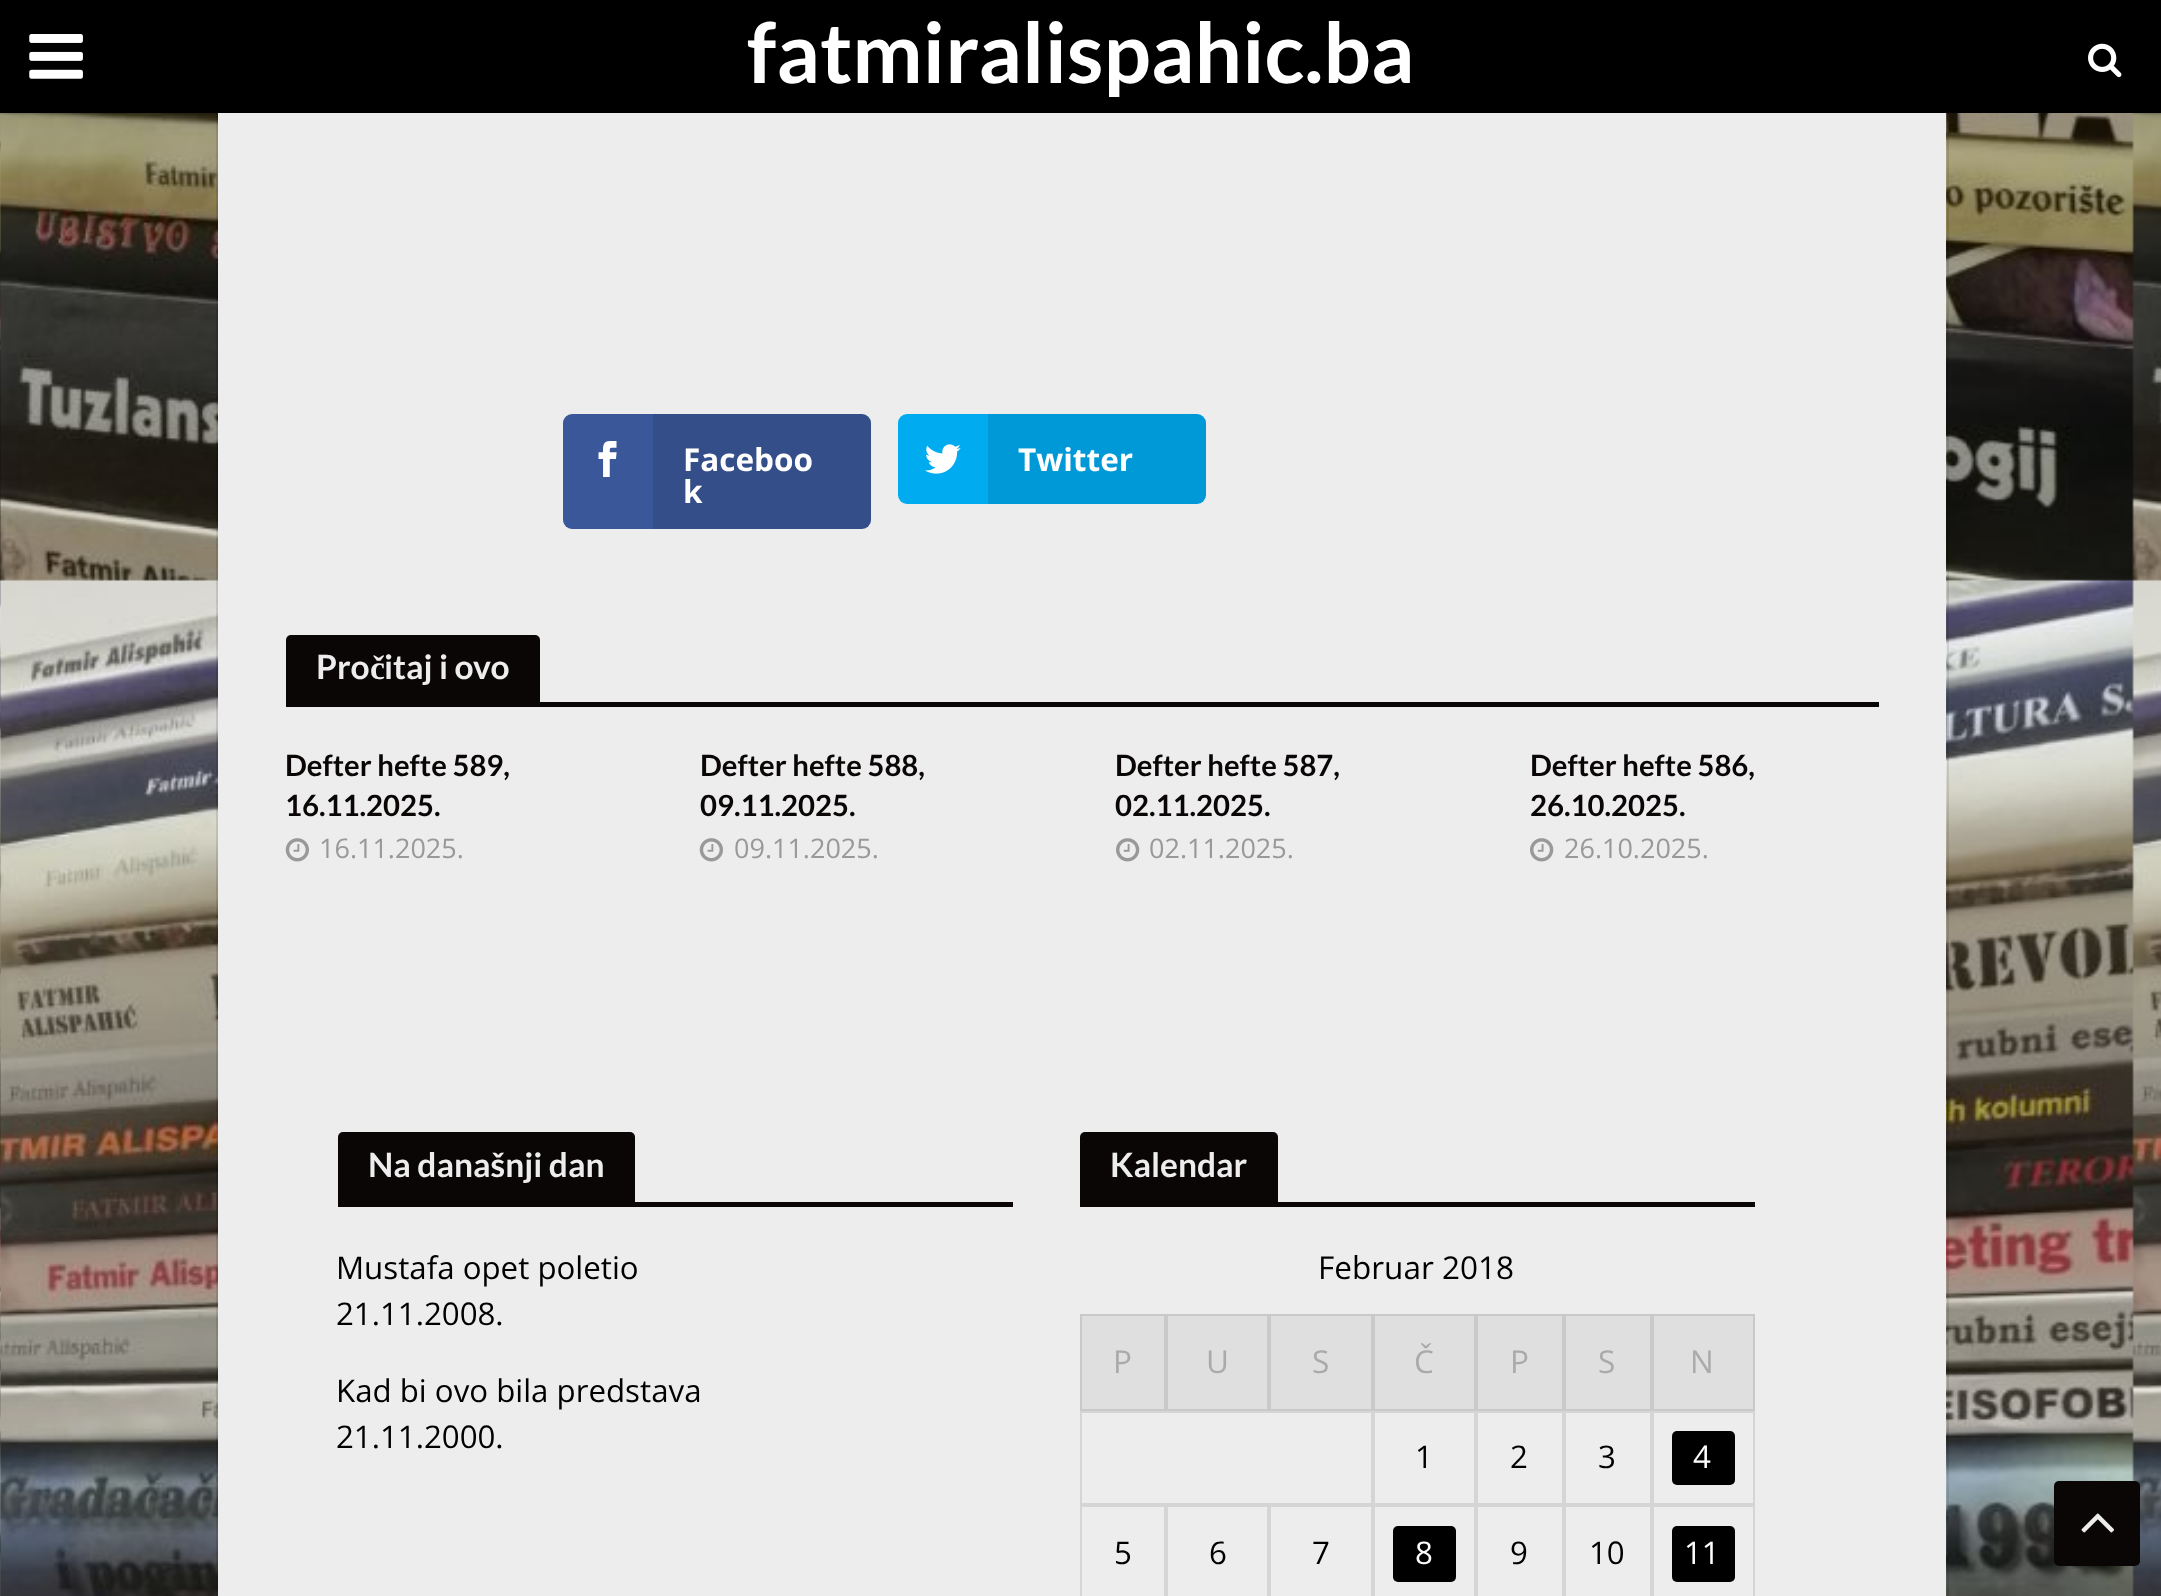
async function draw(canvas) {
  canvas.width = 2161
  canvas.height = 1596
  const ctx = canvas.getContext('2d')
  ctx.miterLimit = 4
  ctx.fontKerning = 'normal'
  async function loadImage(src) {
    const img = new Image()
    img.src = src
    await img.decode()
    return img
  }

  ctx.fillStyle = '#fff'
  ctx.fillRect(0, 0, 2161, 1596)
  ctx.drawImage(await loadImage('image0.png'), 0, 113, 2161, 1483)
  ctx.strokeStyle = '#0000001a'
  ctx.lineWidth = 2
  ctx.strokeRect(217, -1, 1731, 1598)
  ctx.fillStyle = '#000'
  ctx.fillRect(0, 0, 2161, 113)
  ctx.drawImage(await loadImage('image1.png'), 29, 34, 54, 45)
  ctx.font = 'bold 83.5px Lato'
  ctx.fillStyle = '#fff'
  ctx.fillText('fatmiralispahic.ba', 747, 83)
  ctx.drawImage(await loadImage('image2.png'), 2088, 43, 34, 35)
  ctx.fillStyle = '#ededed'
  ctx.fillRect(218, 113, 1728, 1483)
  ctx.fillStyle = '#3a579a'
  ctx.beginPath()
  ctx.roundRect(563, 414, 308, 115, 9)
  ctx.fill()
  ctx.drawImage(await loadImage('image3.png'), 598, 441, 19, 36)
  ctx.fillStyle = '#0000001a'
  ctx.beginPath()
  ctx.roundRect(653, 414, 218, 115, [0, 9, 9, 0])
  ctx.fill()
  ctx.font = 'bold 31.5px Open Sans'
  ctx.fillStyle = '#fff'
  ctx.fillText('Faceboo', 683, 471)
  ctx.fillText('k', 683, 503)
  ctx.fillStyle = '#00abf0'
  ctx.beginPath()
  ctx.roundRect(898, 414, 308, 90, 9)
  ctx.fill()
  ctx.drawImage(await loadImage('image4.png'), 925, 444, 36, 30)
  ctx.fillStyle = '#0000001a'
  ctx.beginPath()
  ctx.roundRect(988, 414, 218, 90, [0, 9, 9, 0])
  ctx.fill()
  ctx.fillStyle = '#fff'
  ctx.fillText('Twitter', 1018, 471)
  ctx.fillStyle = '#0a0606'
  ctx.beginPath()
  ctx.roundRect(286, 635, 254, 67, [5, 5, 0, 0])
  ctx.fill()
  ctx.font = 'bold 33.5px Lato'
  ctx.fillStyle = '#ededed'
  ctx.fillText('Pro', 316, 679)
  ctx.font = 'bold 33.5px Liberation Serif'
  ctx.fillText('č', 370, 679)
  ctx.font = 'bold 33.5px Lato'
  ctx.fillText('itaj i ovo', 384, 679)
  ctx.fillStyle = '#0a0606'
  ctx.fillRect(286, 702, 1593, 5)
  ctx.font = 'bold 29.25px Lato'
  ctx.fillText('Defter hefte 589,', 285, 776)
  ctx.fillText('16.11.2025.', 285, 816)
  ctx.drawImage(await loadImage('image5.png'), 285, 838, 24, 24)
  ctx.font = '27px Open Sans'
  ctx.fillStyle = '#999'
  ctx.fillText('16.11.2025.', 319, 858)
  ctx.font = 'bold 29.25px Lato'
  ctx.fillStyle = '#0a0606'
  ctx.fillText('Defter hefte 588,', 700, 776)
  ctx.fillText('09.11.2025.', 700, 816)
  ctx.drawImage(await loadImage('image5.png'), 699, 838, 24, 24)
  ctx.font = '27px Open Sans'
  ctx.fillStyle = '#999'
  ctx.fillText('09.11.2025.', 734, 858)
  ctx.font = 'bold 29.25px Lato'
  ctx.fillStyle = '#0a0606'
  ctx.fillText('Defter hefte 587,', 1115, 776)
  ctx.fillText('02.11.2025.', 1115, 816)
  ctx.drawImage(await loadImage('image6.png'), 1116, 838, 24, 24)
  ctx.font = '27px Open Sans'
  ctx.fillStyle = '#999'
  ctx.fillText('02.11.2025.', 1149, 858)
  ctx.font = 'bold 29.25px Lato'
  ctx.fillStyle = '#0a0606'
  ctx.fillText('Defter hefte 586,', 1530, 776)
  ctx.fillText('26.10.2025.', 1530, 816)
  ctx.drawImage(await loadImage('image6.png'), 1530, 838, 24, 24)
  ctx.font = '27px Open Sans'
  ctx.fillStyle = '#999'
  ctx.fillText('26.10.2025.', 1564, 858)
  ctx.fillStyle = '#0a0606'
  ctx.beginPath()
  ctx.roundRect(338, 1132, 297, 70, [5, 5, 0, 0])
  ctx.fill()
  ctx.font = 'bold 33.5px Lato'
  ctx.fillStyle = '#ededed'
  ctx.fillText('Na današnji dan', 368, 1177)
  ctx.fillStyle = '#0a0606'
  ctx.fillRect(338, 1202, 675, 5)
  ctx.font = '31.25px Open Sans'
  ctx.fillStyle = '#000'
  ctx.fillText('Mustafa opet poletio', 336, 1279)
  ctx.fillText('21.11.2008.', 336, 1325)
  ctx.fillText('Kad bi ovo bila predstava', 336, 1402)
  ctx.fillText('21.11.2000.', 336, 1448)
  ctx.fillStyle = '#0a0606'
  ctx.beginPath()
  ctx.roundRect(1080, 1132, 198, 70, [5, 5, 0, 0])
  ctx.fill()
  ctx.font = 'bold 33.5px Lato'
  ctx.fillStyle = '#ededed'
  ctx.fillText('Kalendar', 1110, 1177)
  ctx.fillStyle = '#0a0606'
  ctx.fillRect(1080, 1202, 675, 5)
  ctx.font = '31.5px Open Sans'
  ctx.fillStyle = '#000'
  ctx.fillText('Februar 2018', 1318, 1279)
  ctx.fillStyle = '#dfdfdf'
  ctx.fillRect(1082, 1316, 671, 93)
  ctx.strokeStyle = '#c9c9c9'
  ctx.strokeRect(1081, 1315, 84, 95)
  ctx.fillStyle = '#aaa'
  ctx.fillText('P', 1113, 1373)
  ctx.strokeRect(1167, 1315, 101, 95)
  ctx.fillText('U', 1206, 1373)
  ctx.strokeRect(1270, 1315, 102, 95)
  ctx.fillText('S', 1312, 1373)
  ctx.strokeRect(1374, 1315, 101, 95)
  ctx.fillText('Č', 1414, 1373)
  ctx.strokeRect(1477, 1315, 86, 95)
  ctx.fillText('P', 1510, 1373)
  ctx.strokeRect(1565, 1315, 86, 95)
  ctx.fillText('S', 1598, 1373)
  ctx.strokeRect(1653, 1315, 101, 95)
  ctx.fillText('N', 1690, 1373)
  ctx.strokeStyle = '#d5d5d5'
  ctx.strokeRect(1081, 1412, 291, 92)
  ctx.strokeRect(1374, 1412, 101, 92)
  ctx.font = '31.25px Open Sans'
  ctx.fillStyle = '#000'
  ctx.fillText('1', 1415, 1468)
  ctx.strokeRect(1477, 1412, 86, 92)
  ctx.fillText('2', 1510, 1468)
  ctx.strokeRect(1565, 1412, 86, 92)
  ctx.fillText('3', 1598, 1468)
  ctx.strokeRect(1653, 1412, 101, 92)
  ctx.beginPath()
  ctx.roundRect(1672, 1431, 63, 54, 5)
  ctx.fill()
  ctx.fillStyle = '#fff'
  ctx.fillText('4', 1693, 1468)
  ctx.strokeRect(1081, 1506, 84, 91)
  ctx.fillStyle = '#000'
  ctx.fillText('5', 1114, 1564)
  ctx.strokeRect(1167, 1506, 101, 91)
  ctx.fillText('6', 1209, 1564)
  ctx.strokeRect(1270, 1506, 102, 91)
  ctx.fillText('7', 1312, 1564)
  ctx.strokeRect(1374, 1506, 101, 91)
  ctx.beginPath()
  ctx.roundRect(1393, 1526, 63, 56, 5)
  ctx.fill()
  ctx.fillStyle = '#fff'
  ctx.fillText('8', 1415, 1564)
  ctx.strokeRect(1477, 1506, 86, 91)
  ctx.fillStyle = '#000'
  ctx.fillText('9', 1510, 1564)
  ctx.strokeRect(1565, 1506, 86, 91)
  ctx.fillText('10', 1589, 1564)
  ctx.strokeRect(1653, 1506, 101, 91)
  ctx.beginPath()
  ctx.roundRect(1672, 1526, 63, 56, 5)
  ctx.fill()
  ctx.fillStyle = '#fff'
  ctx.fillText('11', 1684, 1564)
  ctx.fillStyle = '#0a0606'
  ctx.beginPath()
  ctx.roundRect(2054, 1481, 86, 85, 5)
  ctx.fill()
  ctx.drawImage(await loadImage('image7.png'), 2081, 1513, 34, 20)
}

draw(document.querySelector('canvas'))
